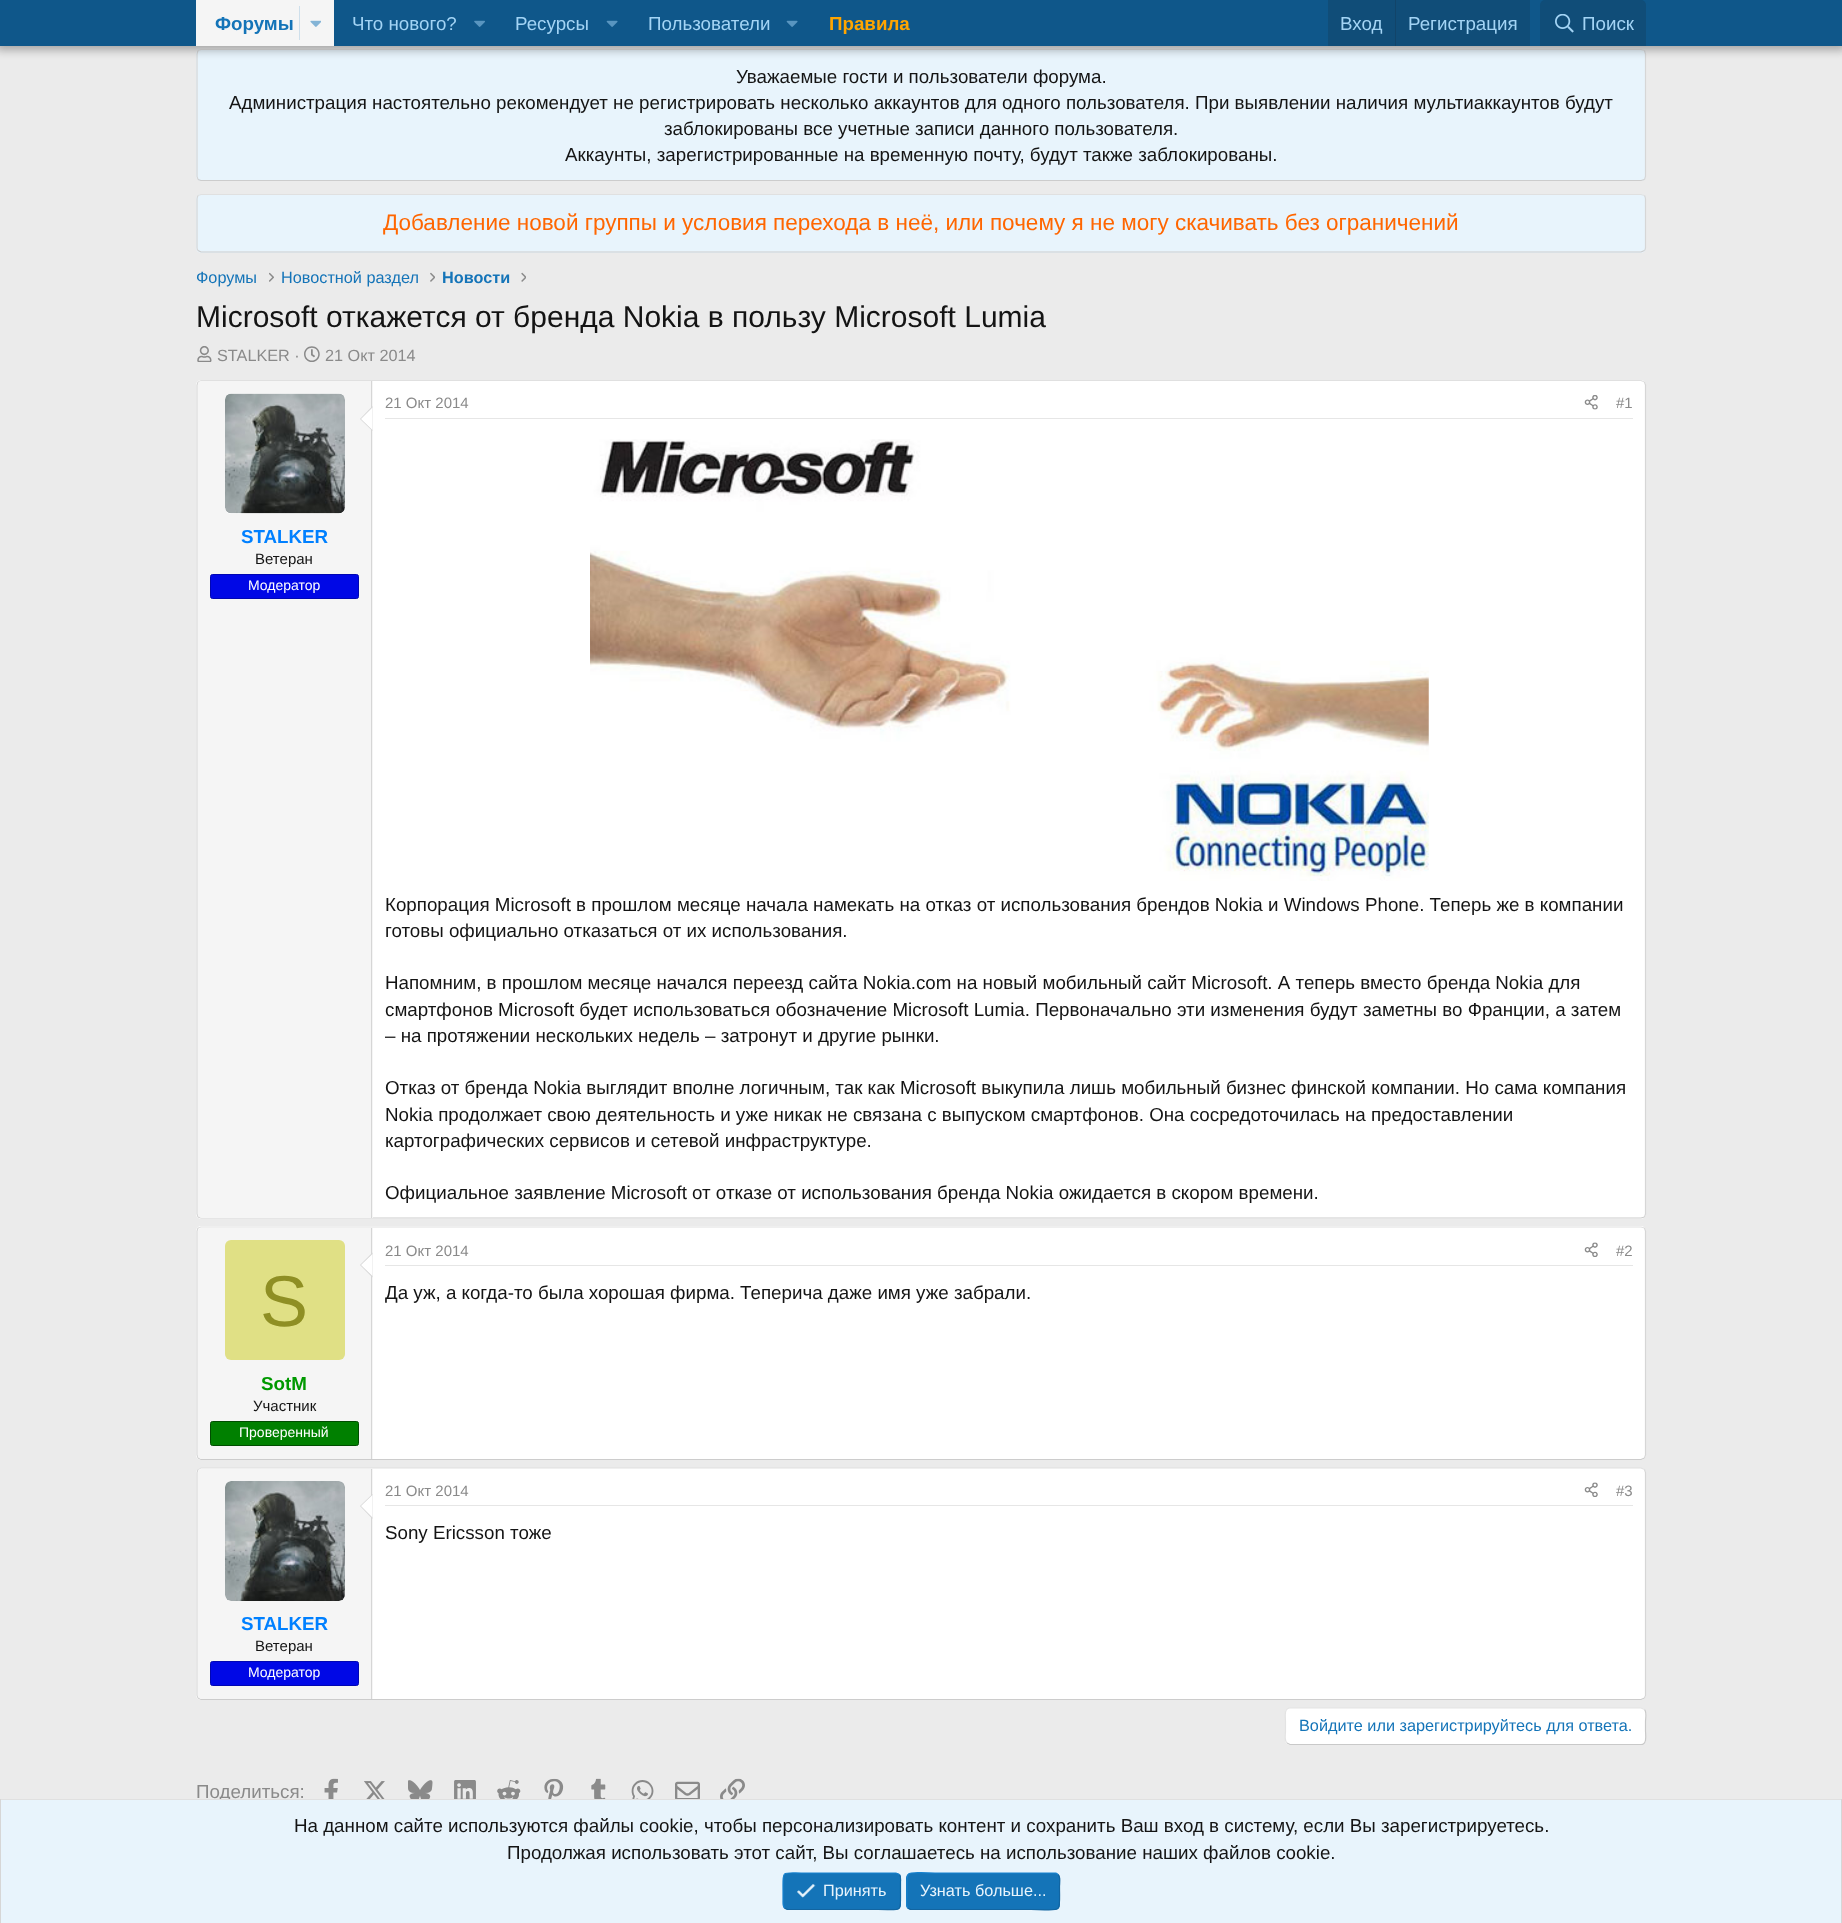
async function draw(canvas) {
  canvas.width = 1842
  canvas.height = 1923
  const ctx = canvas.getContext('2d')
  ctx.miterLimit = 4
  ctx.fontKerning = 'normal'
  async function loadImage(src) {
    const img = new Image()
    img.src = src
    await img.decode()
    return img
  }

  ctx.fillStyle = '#ebebeb'
  ctx.fillRect(0, 0, 1842, 1923)
  ctx.fillStyle = '#e8f4fc'
  ctx.beginPath()
  ctx.roundRect(196, 49, 1450, 132, 5)
  ctx.fill()
  ctx.beginPath()
  ctx.moveTo(198, 50.5)
  ctx.lineTo(201, 49.5)
  ctx.lineTo(1641, 49.5)
  ctx.lineTo(1644.5, 50.5)
  ctx.strokeStyle = '#e0e0e0'
  ctx.lineWidth = 1.2
  ctx.stroke()
  ctx.beginPath()
  ctx.moveTo(1644.5, 50.5)
  ctx.lineTo(1645.5, 54)
  ctx.lineTo(1645.5, 176.5)
  ctx.lineTo(1644.5, 179.5)
  ctx.strokeStyle = '#d6d6d6'
  ctx.stroke()
  ctx.beginPath()
  ctx.moveTo(1644.5, 179.5)
  ctx.lineTo(1641, 180.5)
  ctx.lineTo(201, 180.5)
  ctx.lineTo(198, 179.5)
  ctx.strokeStyle = '#ccc'
  ctx.stroke()
  ctx.beginPath()
  ctx.moveTo(198, 179.5)
  ctx.lineTo(197, 176.5)
  ctx.lineTo(197, 74)
  ctx.lineTo(197, 54)
  ctx.lineTo(198, 50.5)
  ctx.strokeStyle = '#d6d6d6'
  ctx.stroke()
  ctx.fillStyle = '#0000004d'
  ctx.filter = 'blur(5px)'
  ctx.beginPath()
  ctx.rect(-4, -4, 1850, 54)
  ctx.fill()
  ctx.filter = 'none'
  ctx.fillStyle = '#0f578a'
  ctx.fillRect(0, 0, 1842, 46)
  ctx.fillStyle = '#f5f5f5'
  ctx.fillRect(196, 0, 138, 46)
  ctx.font = 'bold 18.75px Liberation Sans'
  ctx.fillStyle = '#1474b8'
  ctx.fillText('Форумы', 215, 30)
  ctx.fillStyle = '#cedfeb'
  ctx.fillRect(299, 6, 1, 34)
  ctx.drawImage(await loadImage('image0.png'), 310, 20, 11, 7)
  ctx.font = '18.75px Liberation Sans'
  ctx.fillStyle = '#a3d4f5'
  ctx.fillText('Что нового?', 352, 30)
  ctx.drawImage(await loadImage('image1.png'), 474, 20, 11, 7)
  ctx.fillText('Ресурсы', 515, 30)
  ctx.drawImage(await loadImage('image2.png'), 606, 20, 12, 7)
  ctx.fillText('Пользователи', 648, 30)
  ctx.drawImage(await loadImage('image2.png'), 786, 20, 12, 7)
  ctx.font = 'bold 18.75px Liberation Sans'
  ctx.fillStyle = '#ffa500'
  ctx.fillText('Правила', 829, 30)
  ctx.fillStyle = '#104d78'
  ctx.fillRect(1328, 0, 202, 46)
  ctx.font = '18.75px Liberation Sans'
  ctx.fillStyle = '#a3d4f5'
  ctx.fillText('Вход', 1340, 30)
  ctx.fillStyle = '#114469'
  ctx.fillRect(1395, 0, 1, 46)
  ctx.fillStyle = '#a3d4f5'
  ctx.fillText('Регистрация', 1408, 30)
  ctx.fillStyle = '#104d78'
  ctx.beginPath()
  ctx.roundRect(1540, 0, 106, 46, [5, 5, 0, 0])
  ctx.fill()
  ctx.drawImage(await loadImage('image3.png'), 1555, 14, 19, 19)
  ctx.fillStyle = '#a3d4f5'
  ctx.fillText('Поиск', 1582, 30)
  ctx.fillStyle = '#141414'
  ctx.fillText('Уважаемые гости и пользователи форума.', 736, 83)
  ctx.fillText('Администрация настоятельно рекомендует не регистрировать несколько аккаунтов для одного пользователя. При выявлении наличия мультиаккаунтов будут', 229, 109)
  ctx.fillText('заблокированы все учетные записи данного пользователя.', 664, 135)
  ctx.fillText('Аккаунты, зарегистрированные на временную почту, будут также заблокированы.', 565, 161)
  ctx.fillStyle = '#e8f4fc'
  ctx.beginPath()
  ctx.roundRect(196, 194, 1450, 59, 5)
  ctx.fill()
  ctx.beginPath()
  ctx.moveTo(198, 195.5)
  ctx.lineTo(201, 194.5)
  ctx.lineTo(1641, 194.5)
  ctx.lineTo(1644.5, 195.5)
  ctx.strokeStyle = '#e0e0e0'
  ctx.stroke()
  ctx.beginPath()
  ctx.moveTo(1644.5, 195.5)
  ctx.bezierCurveTo(1645, 196.5, 1645.5, 197.5, 1645.5, 199)
  ctx.lineTo(1645.5, 247.5)
  ctx.bezierCurveTo(1645.5, 248.5, 1645, 250, 1644.5, 250.5)
  ctx.strokeStyle = '#d6d6d6'
  ctx.stroke()
  ctx.beginPath()
  ctx.moveTo(1644.5, 250.5)
  ctx.lineTo(1641, 252)
  ctx.lineTo(201, 252)
  ctx.lineTo(198, 250.5)
  ctx.strokeStyle = '#ccc'
  ctx.stroke()
  ctx.beginPath()
  ctx.moveTo(198, 250.5)
  ctx.bezierCurveTo(197.5, 250, 197, 248.5, 197, 247.5)
  ctx.lineTo(197, 199)
  ctx.bezierCurveTo(197, 197.5, 197.5, 196.5, 198, 195.5)
  ctx.strokeStyle = '#d6d6d6'
  ctx.stroke()
  ctx.font = '22.5px Liberation Sans'
  ctx.fillStyle = '#f60'
  ctx.fillText('Добавление новой группы и условия перехода в неё, или почему я не могу скачивать без ограничений', 383, 230)
  ctx.font = '16.25px Liberation Sans'
  ctx.fillStyle = '#1474b8'
  ctx.fillText('Форумы', 196, 283)
  ctx.drawImage(await loadImage('image4.png'), 269, 272, 5, 10)
  ctx.fillText('Новостной раздел', 281, 283)
  ctx.drawImage(await loadImage('image5.png'), 430, 272, 5, 10)
  ctx.font = 'bold 16.25px Liberation Sans'
  ctx.fillText('Новости', 442, 283)
  ctx.drawImage(await loadImage('image6.png'), 521, 272, 5, 10)
  ctx.font = '30px Liberation Sans'
  ctx.fillStyle = '#141414'
  ctx.fillText('Microsoft откажется от бренда Nokia в пользу Microsoft Lumia', 196, 327)
  ctx.drawImage(await loadImage('image7.png'), 197, 346, 15, 16)
  ctx.font = '16.25px Liberation Sans'
  ctx.fillStyle = '#8a8a8a'
  ctx.fillText('STALKER ·', 217, 361)
  ctx.drawImage(await loadImage('image8.png'), 304, 346, 16, 16)
  ctx.fillText('21 Окт 2014', 325, 361)
  ctx.fillStyle = '#fff'
  ctx.beginPath()
  ctx.roundRect(196, 380, 1450, 839, 5)
  ctx.fill()
  ctx.beginPath()
  ctx.moveTo(198, 382)
  ctx.lineTo(201, 380.5)
  ctx.lineTo(1641, 380.5)
  ctx.lineTo(1644.5, 382)
  ctx.strokeStyle = '#e0e0e0'
  ctx.stroke()
  ctx.beginPath()
  ctx.moveTo(1644.5, 382)
  ctx.lineTo(1645.5, 385)
  ctx.lineTo(1645.5, 1214)
  ctx.lineTo(1644.5, 1217)
  ctx.strokeStyle = '#d6d6d6'
  ctx.stroke()
  ctx.beginPath()
  ctx.moveTo(1644.5, 1217)
  ctx.lineTo(1641, 1218)
  ctx.lineTo(201, 1218)
  ctx.lineTo(198, 1217)
  ctx.strokeStyle = '#ccc'
  ctx.stroke()
  ctx.beginPath()
  ctx.moveTo(198, 1217)
  ctx.lineTo(197, 1214)
  ctx.lineTo(197, 385)
  ctx.lineTo(198, 382)
  ctx.strokeStyle = '#d6d6d6'
  ctx.stroke()
  ctx.fillStyle = '#f5f5f5'
  ctx.beginPath()
  ctx.roundRect(198, 381, 175, 837, [4, 0, 0, 4])
  ctx.fill()
  ctx.fillStyle = '#d6d6d6'
  ctx.fillRect(371, 381, 1, 837)
  ctx.fillStyle = '#fff'
  ctx.beginPath()
  ctx.roundRect(225, 394, 120, 120, 6)
  ctx.fill()
  ctx.drawImage(await loadImage('image9.png'), 225, 393, 120, 121)
  ctx.fillStyle = '#d6d6d6'
  ctx.beginPath()
  ctx.moveTo(372.5, 406)
  ctx.lineTo(372.5, 431)
  ctx.lineTo(360, 419)
  ctx.closePath()
  ctx.fill()
  ctx.fillStyle = '#fff'
  ctx.beginPath()
  ctx.moveTo(372.5, 407.5)
  ctx.lineTo(372.5, 430)
  ctx.lineTo(361, 419)
  ctx.closePath()
  ctx.fill()
  ctx.font = 'bold 18.75px Liberation Sans'
  ctx.fillStyle = '#0080ff'
  ctx.fillText('STALKER', 241, 543)
  ctx.font = '15px Liberation Sans'
  ctx.fillStyle = '#141414'
  ctx.fillText('Ветеран', 255, 564)
  ctx.fillStyle = '#0008e6'
  ctx.beginPath()
  ctx.roundRect(210.5, 574.5, 148, 24, 2)
  ctx.fill()
  ctx.strokeStyle = '#0006b3'
  ctx.lineWidth = 1
  ctx.stroke()
  ctx.font = '14px Liberation Sans'
  ctx.fillStyle = '#fff'
  ctx.fillText('Модератор', 248, 590)
  ctx.fillStyle = '#e6e6e6'
  ctx.fillRect(385, 418, 1248, 1)
  ctx.font = '15px Liberation Sans'
  ctx.fillStyle = '#8a8a8a'
  ctx.fillText('21 Окт 2014', 385, 408)
  ctx.drawImage(await loadImage('image10.png'), 1584, 395, 14, 15)
  ctx.fillText('#1', 1616, 408)
  ctx.drawImage(await loadImage('image11.png'), 590, 439, 839, 442)
  ctx.font = '18.75px Liberation Sans'
  ctx.fillStyle = '#141414'
  ctx.fillText('Корпорация Microsoft в прошлом месяце начала намекать на отказ от использования брендов Nokia и Windows Phone. Теперь же в компании', 385, 911)
  ctx.fillText('готовы официально отказаться от их использования.', 385, 937)
  ctx.fillText('Напомним, в прошлом месяце начался переезд сайта Nokia.com на новый мобильный сайт Microsoft. А теперь вместо бренда Nokia для', 385, 989)
  ctx.fillText('смартфонов Microsoft будет использоваться обозначение Microsoft Lumia. Первоначально эти изменения будут заметны во Франции, а затем', 385, 1016)
  ctx.fillText('– на протяжении нескольких недель – затронут и другие рынки.', 385, 1042)
  ctx.fillText('Отказ от бренда Nokia выглядит вполне логичным, так как Microsoft выкупила лишь мобильный бизнес финской компании. Но сама компания', 385, 1094)
  ctx.fillText('Nokia продолжает свою деятельность и уже никак не связана с выпуском смартфонов. Она сосредоточилась на предоставлении', 385, 1121)
  ctx.fillText('картографических сервисов и сетевой инфраструктуре.', 385, 1147)
  ctx.fillText('Официальное заявление Microsoft от отказе от использования бренда Nokia ожидается в скором времени.', 385, 1199)
  ctx.fillStyle = '#fff'
  ctx.beginPath()
  ctx.roundRect(196, 1226, 1450, 234, 5)
  ctx.fill()
  ctx.beginPath()
  ctx.moveTo(198, 1228)
  ctx.lineTo(201, 1227)
  ctx.lineTo(1641, 1227)
  ctx.lineTo(1644.5, 1228)
  ctx.strokeStyle = '#e0e0e0'
  ctx.lineWidth = 1.2
  ctx.stroke()
  ctx.beginPath()
  ctx.moveTo(1644.5, 1228)
  ctx.lineTo(1645.5, 1231)
  ctx.lineTo(1645.5, 1417.5)
  ctx.lineTo(1645.5, 1455)
  ctx.lineTo(1644.5, 1458)
  ctx.strokeStyle = '#d6d6d6'
  ctx.stroke()
  ctx.beginPath()
  ctx.moveTo(1644.5, 1458)
  ctx.lineTo(1641, 1459.5)
  ctx.lineTo(201, 1459.5)
  ctx.lineTo(198, 1458)
  ctx.strokeStyle = '#ccc'
  ctx.stroke()
  ctx.beginPath()
  ctx.moveTo(198, 1458)
  ctx.lineTo(197, 1455)
  ctx.lineTo(197, 1231)
  ctx.lineTo(198, 1228)
  ctx.strokeStyle = '#d6d6d6'
  ctx.stroke()
  ctx.fillStyle = '#f5f5f5'
  ctx.beginPath()
  ctx.roundRect(198, 1228, 175, 231, [4, 0, 0, 4])
  ctx.fill()
  ctx.fillStyle = '#d6d6d6'
  ctx.fillRect(371, 1228, 1, 231)
  ctx.beginPath()
  ctx.moveTo(372.5, 1252.5)
  ctx.lineTo(372.5, 1277.5)
  ctx.lineTo(360, 1265)
  ctx.closePath()
  ctx.fill()
  ctx.fillStyle = '#fff'
  ctx.beginPath()
  ctx.moveTo(372.5, 1254)
  ctx.lineTo(372.5, 1276)
  ctx.lineTo(361, 1265)
  ctx.closePath()
  ctx.fill()
  ctx.fillStyle = '#e0e085'
  ctx.beginPath()
  ctx.roundRect(225, 1240, 120, 120, 6)
  ctx.fill()
  ctx.font = '72px Liberation Sans'
  ctx.fillStyle = '#8f8f24'
  ctx.fillText('S', 260, 1326)
  ctx.font = 'bold 18.75px Liberation Sans'
  ctx.fillStyle = '#090'
  ctx.fillText('SotM', 261, 1390)
  ctx.font = '15px Liberation Sans'
  ctx.fillStyle = '#141414'
  ctx.fillText('Участник', 253, 1411)
  ctx.fillStyle = '#008000'
  ctx.beginPath()
  ctx.roundRect(210.5, 1421.5, 148, 24, 2)
  ctx.fill()
  ctx.strokeStyle = '#004d00'
  ctx.lineWidth = 1
  ctx.stroke()
  ctx.font = '14px Liberation Sans'
  ctx.fillStyle = '#fff'
  ctx.fillText('Проверенный', 239, 1437)
  ctx.fillStyle = '#e6e6e6'
  ctx.fillRect(385, 1265, 1248, 1)
  ctx.font = '15px Liberation Sans'
  ctx.fillStyle = '#8a8a8a'
  ctx.fillText('21 Окт 2014', 385, 1256)
  ctx.drawImage(await loadImage('image12.png'), 1584, 1242, 14, 15)
  ctx.fillText('#2', 1616, 1256)
  ctx.font = '18.75px Liberation Sans'
  ctx.fillStyle = '#141414'
  ctx.fillText('Да уж, а когда-то была хорошая фирма. Теперича даже имя уже забрали.', 385, 1299)
  ctx.fillStyle = '#fff'
  ctx.beginPath()
  ctx.roundRect(196, 1468, 1450, 232, 5)
  ctx.fill()
  ctx.beginPath()
  ctx.moveTo(198, 1469.5)
  ctx.lineTo(201, 1468)
  ctx.lineTo(1641, 1468)
  ctx.lineTo(1644.5, 1469.5)
  ctx.strokeStyle = '#e0e0e0'
  ctx.lineWidth = 1.2
  ctx.stroke()
  ctx.beginPath()
  ctx.moveTo(1644.5, 1469.5)
  ctx.lineTo(1645.5, 1472.5)
  ctx.lineTo(1645.5, 1695.5)
  ctx.lineTo(1644.5, 1698)
  ctx.strokeStyle = '#d6d6d6'
  ctx.stroke()
  ctx.beginPath()
  ctx.moveTo(1644.5, 1698)
  ctx.lineTo(1641, 1699.5)
  ctx.lineTo(201, 1699.5)
  ctx.lineTo(198, 1698)
  ctx.strokeStyle = '#ccc'
  ctx.stroke()
  ctx.beginPath()
  ctx.moveTo(198, 1698)
  ctx.lineTo(197, 1695.5)
  ctx.lineTo(197, 1509.5)
  ctx.lineTo(197, 1472.5)
  ctx.lineTo(198, 1469.5)
  ctx.strokeStyle = '#d6d6d6'
  ctx.stroke()
  ctx.fillStyle = '#e6e6e6'
  ctx.fillRect(385, 1505, 1248, 1)
  ctx.font = '15px Liberation Sans'
  ctx.fillStyle = '#8a8a8a'
  ctx.fillText('21 Окт 2014', 385, 1496)
  ctx.drawImage(await loadImage('image12.png'), 1584, 1482, 14, 15)
  ctx.fillText('#3', 1616, 1496)
  ctx.font = '18.75px Liberation Sans'
  ctx.fillStyle = '#141414'
  ctx.fillText('Sony Ericsson тоже', 385, 1539)
  ctx.fillStyle = '#f5f5f5'
  ctx.beginPath()
  ctx.roundRect(198, 1469, 175, 230, [4, 0, 0, 4])
  ctx.fill()
  ctx.fillStyle = '#d6d6d6'
  ctx.fillRect(371, 1469, 1, 230)
  ctx.fillStyle = '#fff'
  ctx.beginPath()
  ctx.roundRect(225, 1481, 120, 120, 6)
  ctx.fill()
  ctx.drawImage(await loadImage('image13.png'), 225, 1481, 120, 120)
  ctx.fillStyle = '#d6d6d6'
  ctx.beginPath()
  ctx.moveTo(372.5, 1494)
  ctx.lineTo(372.5, 1519)
  ctx.lineTo(360, 1506)
  ctx.closePath()
  ctx.fill()
  ctx.fillStyle = '#fff'
  ctx.beginPath()
  ctx.moveTo(372.5, 1495)
  ctx.lineTo(372.5, 1517.5)
  ctx.lineTo(361, 1506)
  ctx.closePath()
  ctx.fill()
  ctx.font = 'bold 18.75px Liberation Sans'
  ctx.fillStyle = '#0080ff'
  ctx.fillText('STALKER', 241, 1630)
  ctx.font = '15px Liberation Sans'
  ctx.fillStyle = '#141414'
  ctx.fillText('Ветеран', 255, 1651)
  ctx.fillStyle = '#0008e6'
  ctx.beginPath()
  ctx.roundRect(210.5, 1661.5, 148, 24, 2)
  ctx.fill()
  ctx.strokeStyle = '#0006b3'
  ctx.lineWidth = 1
  ctx.stroke()
  ctx.font = '14px Liberation Sans'
  ctx.fillStyle = '#fff'
  ctx.fillText('Модератор', 248, 1677)
  ctx.beginPath()
  ctx.roundRect(1285, 1708, 361, 37, 5)
  ctx.fill()
  ctx.beginPath()
  ctx.moveTo(1644.5, 1709.5)
  ctx.bezierCurveTo(1647, 1712, 1645.5, 1718.5, 1645.5, 1721.5)
  ctx.lineTo(1645.5, 1731)
  ctx.bezierCurveTo(1645.5, 1734, 1647.5, 1744.5, 1641, 1744.5)
  ctx.lineTo(1290, 1744.5)
  ctx.lineTo(1287, 1743)
  ctx.strokeStyle = '#c9c9c9'
  ctx.lineWidth = 1.2
  ctx.stroke()
  ctx.beginPath()
  ctx.moveTo(1287, 1743)
  ctx.bezierCurveTo(1284, 1740.5, 1285.5, 1734, 1285.5, 1731)
  ctx.lineTo(1285.5, 1721.5)
  ctx.bezierCurveTo(1285.5, 1718.5, 1283.5, 1708, 1290, 1708)
  ctx.lineTo(1641, 1708)
  ctx.lineTo(1644.5, 1709.5)
  ctx.strokeStyle = '#e3e3e3'
  ctx.stroke()
  ctx.font = '16.25px Liberation Sans'
  ctx.fillStyle = '#1474b8'
  ctx.fillText('Войдите или зарегистрируйтесь для ответа.', 1299, 1731)
  ctx.font = '18.75px Liberation Sans'
  ctx.fillStyle = '#8a8a8a'
  ctx.fillText('Поделиться:', 196, 1798)
  ctx.drawImage(await loadImage('image14.png'), 324, 1778, 14, 21)
  ctx.drawImage(await loadImage('image15.png'), 364, 1781, 21, 18)
  ctx.drawImage(await loadImage('image16.png'), 408, 1780, 25, 19)
  ctx.drawImage(await loadImage('image17.png'), 454, 1780, 22, 19)
  ctx.drawImage(await loadImage('image18.png'), 497, 1780, 24, 19)
  ctx.drawImage(await loadImage('image19.png'), 544, 1778, 20, 21)
  ctx.drawImage(await loadImage('image20.png'), 591, 1778, 15, 21)
  ctx.drawImage(await loadImage('image21.png'), 631, 1780, 23, 19)
  ctx.drawImage(await loadImage('image22.png'), 675, 1781, 25, 18)
  ctx.drawImage(await loadImage('image23.png'), 720, 1778, 25, 21)
  ctx.fillStyle = '#e8f4fc'
  ctx.fillRect(1, 1800, 1840, 123)
  ctx.fillStyle = '#e0e0e0'
  ctx.fillRect(0, 1799, 1842, 1)
  ctx.fillStyle = '#d6d6d6'
  ctx.fillRect(1841, 1799, 1, 124)
  ctx.fillRect(0, 1799, 1, 124)
  ctx.fillStyle = '#141414'
  ctx.fillText('На данном сайте используются файлы cookie, чтобы персонализировать контент и сохранить Ваш вход в систему, если Вы зарегистрируетесь.', 294, 1832)
  ctx.fillText('Продолжая использовать этот сайт, Вы соглашаетесь на использование наших файлов cookie.', 507, 1859)
  ctx.fillStyle = '#1474b8'
  ctx.beginPath()
  ctx.roundRect(783, 1873, 118, 37, 5)
  ctx.fill()
  ctx.beginPath()
  ctx.moveTo(899.5, 1874.5)
  ctx.bezierCurveTo(901.5, 1876.5, 900.5, 1879.5, 900.5, 1882)
  ctx.lineTo(900.5, 1891)
  ctx.bezierCurveTo(900.5, 1913.5, 903, 1909.5, 878, 1909.5)
  ctx.lineTo(787.5, 1909.5)
  ctx.lineTo(784.5, 1908)
  ctx.strokeStyle = '#1265a1'
  ctx.stroke()
  ctx.beginPath()
  ctx.moveTo(784.5, 1908)
  ctx.bezierCurveTo(782.5, 1906, 783, 1903, 783, 1900.5)
  ctx.lineTo(783, 1891)
  ctx.bezierCurveTo(783, 1869, 780.5, 1873, 805.5, 1873)
  ctx.lineTo(896, 1873)
  ctx.lineTo(899.5, 1874.5)
  ctx.strokeStyle = '#1782cf'
  ctx.stroke()
  ctx.drawImage(await loadImage('image24.png'), 797, 1884, 19, 14)
  ctx.font = '16.25px Liberation Sans'
  ctx.fillStyle = '#e8f4fc'
  ctx.fillText('Принять', 823, 1896)
  ctx.fillStyle = '#1474b8'
  ctx.beginPath()
  ctx.roundRect(906, 1873, 154, 37, 5)
  ctx.fill()
  ctx.beginPath()
  ctx.moveTo(1058, 1874.5)
  ctx.bezierCurveTo(1061, 1877, 1059.5, 1883.5, 1059.5, 1886.5)
  ctx.bezierCurveTo(1059.5, 1915.5, 1063.5, 1909.5, 1031, 1909.5)
  ctx.lineTo(910.5, 1909.5)
  ctx.lineTo(908, 1908)
  ctx.strokeStyle = '#1265a1'
  ctx.stroke()
  ctx.beginPath()
  ctx.moveTo(908, 1908)
  ctx.bezierCurveTo(905.5, 1905.5, 907, 1899, 907, 1896)
  ctx.bezierCurveTo(907, 1867, 903, 1873, 935, 1873)
  ctx.lineTo(1056, 1873)
  ctx.lineTo(1058, 1874.5)
  ctx.strokeStyle = '#1782cf'
  ctx.stroke()
  ctx.fillStyle = '#e8f4fc'
  ctx.fillText('Узнать больше...', 920, 1896)
}

draw(document.querySelector('canvas'))
